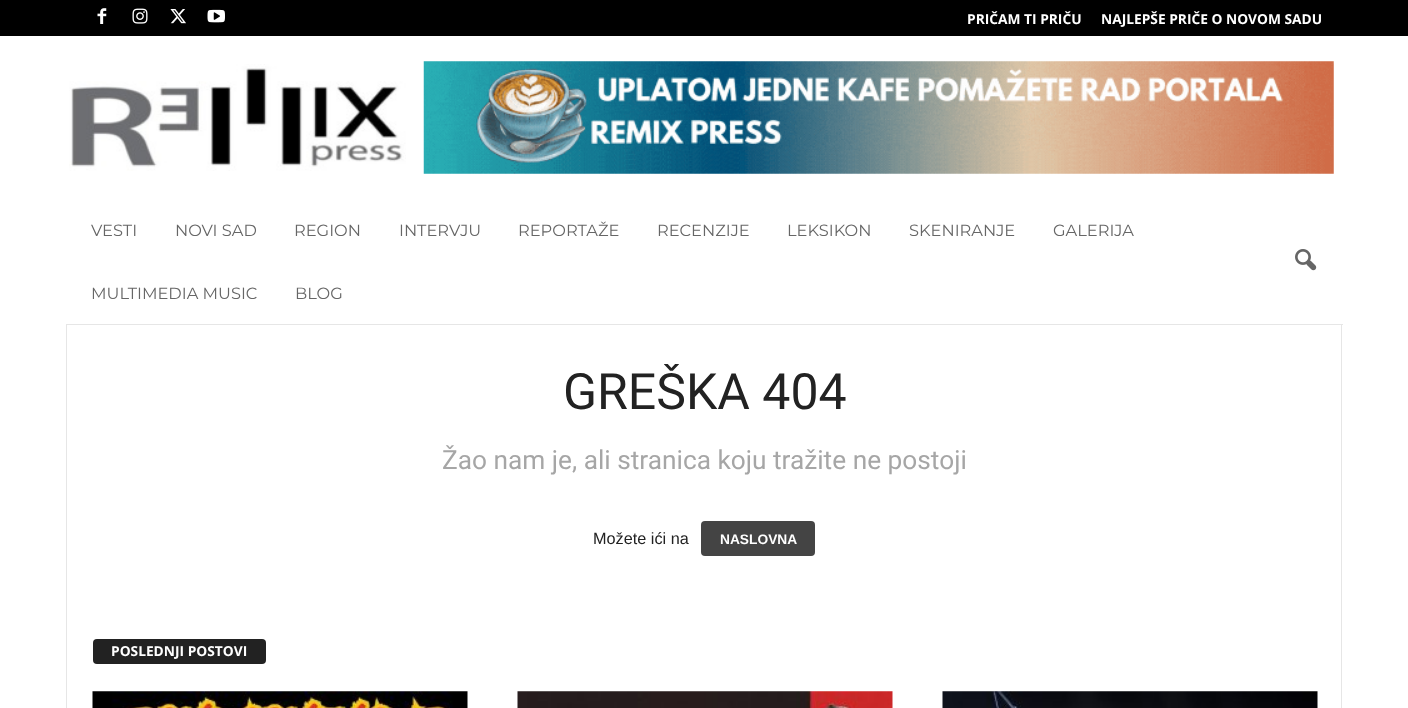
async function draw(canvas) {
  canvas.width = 1408
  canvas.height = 708
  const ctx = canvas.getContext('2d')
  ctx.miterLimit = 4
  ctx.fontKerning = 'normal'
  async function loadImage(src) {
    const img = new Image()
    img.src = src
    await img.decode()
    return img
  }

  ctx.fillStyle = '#fff'
  ctx.fillRect(0, 0, 1408, 708)
  ctx.fillStyle = '#000'
  ctx.fillRect(0, 0, 1408, 36)
  ctx.drawImage(await loadImage('image0.png'), 97, 8, 10, 16)
  ctx.drawImage(await loadImage('image1.png'), 132, 8, 16, 16)
  ctx.drawImage(await loadImage('image2.png'), 170, 9, 16, 15)
  ctx.drawImage(await loadImage('image3.png'), 207, 9, 18, 14)
  ctx.font = 'bold 13.75px Open Sans'
  ctx.fillStyle = '#fff'
  ctx.fillText('PRIČAM TI PRIČU', 967, 24)
  ctx.fillText('NAJLEPŠE PRIČE O NOVOM SADU', 1101, 24)
  ctx.drawImage(await loadImage('image4.png'), 69, 64, 337, 107)
  ctx.drawImage(await loadImage('image5.png'), 423, 61, 911, 113)
  ctx.fillStyle = '#e6e6e6'
  ctx.fillRect(66, 324, 1, 384)
  ctx.fillRect(1341, 324, 1, 384)
  ctx.fillRect(66, 324, 1277, 1)
  ctx.font = '16.25px Montserrat'
  ctx.fillStyle = '#666'
  ctx.fillText('VESTI', 91, 236)
  ctx.fillText('NOVI SAD', 175, 236)
  ctx.fillText('REGION', 294, 236)
  ctx.fillText('INTERVJU', 399, 236)
  ctx.fillText('REPORTAŽE', 518, 236)
  ctx.fillText('RECENZIJE', 657, 236)
  ctx.fillText('LEKSIKON', 787, 236)
  ctx.fillText('SKENIRANJE', 909, 236)
  ctx.fillText('GALERIJA', 1053, 236)
  ctx.fillText('MULTIMEDIA MUSIC', 91, 299)
  ctx.fillText('BLOG', 295, 299)
  ctx.drawImage(await loadImage('image6.png'), 1295, 249, 22, 22)
  ctx.font = '50px Roboto'
  ctx.fillStyle = '#222'
  ctx.fillText('GREŠKA 404', 563, 409)
  ctx.font = '26.25px Roboto'
  ctx.fillStyle = '#a6a6a6'
  ctx.fillText('Žao nam je, ali stranica koju tražite ne postoji', 442, 469)
  ctx.font = '16.25px Liberation Sans'
  ctx.fillStyle = '#222'
  ctx.fillText('Možete ići na', 593, 544)
  ctx.fillStyle = '#444'
  ctx.beginPath()
  ctx.roundRect(701, 521, 114, 35, 4)
  ctx.fill()
  ctx.font = 'bold 13.75px Liberation Sans'
  ctx.fillStyle = '#fff'
  ctx.fillText('NASLOVNA', 720, 544)
  ctx.fillStyle = '#222'
  ctx.beginPath()
  ctx.roundRect(93, 639, 173, 25, 4)
  ctx.fill()
  ctx.font = 'bold 13.75px Open Sans'
  ctx.fillStyle = '#fff'
  ctx.fillText('POSLEDNJI POSTOVI', 111, 656)
  ctx.drawImage(await loadImage('image7.png'), 92, 691, 376, 17)
  ctx.drawImage(await loadImage('image8.png'), 517, 691, 376, 17)
  ctx.drawImage(await loadImage('image9.png'), 942, 691, 376, 17)
}

draw(document.querySelector('canvas'))
